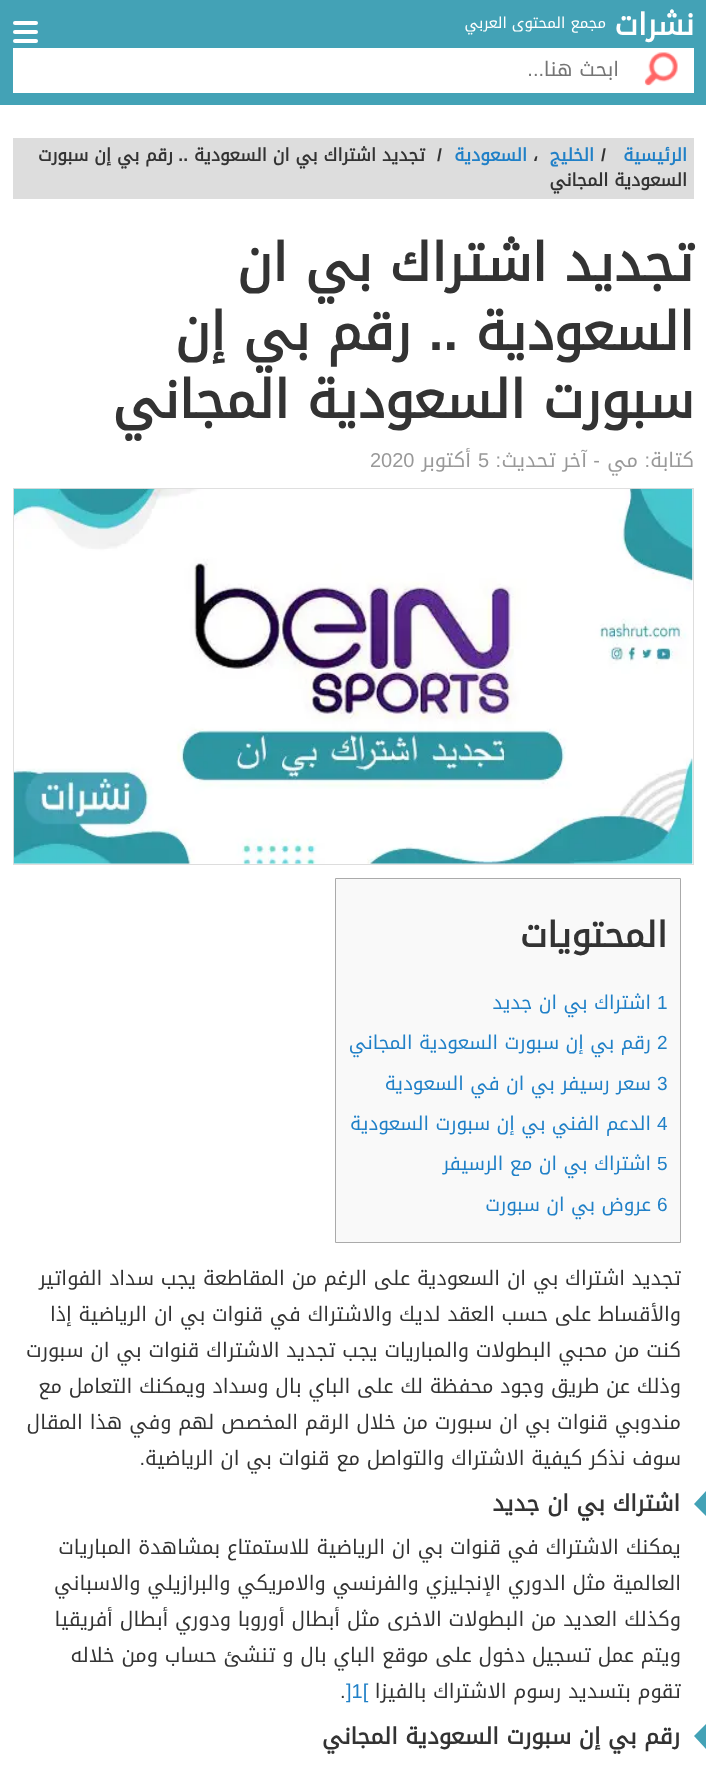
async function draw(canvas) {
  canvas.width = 706
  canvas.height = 1774
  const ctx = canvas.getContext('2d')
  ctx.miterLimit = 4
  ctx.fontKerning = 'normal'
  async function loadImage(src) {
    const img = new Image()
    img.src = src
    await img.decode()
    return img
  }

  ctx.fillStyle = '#fff'
  ctx.fillRect(0, 0, 706, 1774)
  ctx.fillStyle = '#43a2b6'
  ctx.fillRect(0, 0, 706, 105)
  ctx.direction = 'rtl'
  ctx.font = 'bold 30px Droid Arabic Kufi'
  ctx.fillStyle = '#fff'
  ctx.fillText('نشرات', 694, 35)
  ctx.font = '15px Droid Arabic Kufi'
  ctx.fillText('مجمع المحتوى العربي', 606, 28)
  ctx.beginPath()
  ctx.roundRect(13, 21, 25, 4, 2)
  ctx.fill()
  ctx.beginPath()
  ctx.roundRect(13, 30, 25, 4, 2)
  ctx.fill()
  ctx.beginPath()
  ctx.roundRect(13, 39, 25, 4, 2)
  ctx.fill()
  ctx.fillRect(13, 48, 681, 45)
  ctx.drawImage(await loadImage('image0.png'), 644, 52, 34, 34)
  ctx.font = '20px Droid Arabic Kufi'
  ctx.fillStyle = '#757575'
  ctx.fillText('ابحث هنا', 619, 76)
  ctx.font = '20px Liberation Sans'
  ctx.fillText('...', 544, 76)
  ctx.fillStyle = '#ddd'
  ctx.fillRect(13, 138, 681, 61)
  ctx.font = 'bold 17.5px Droid Arabic Kufi'
  ctx.fillStyle = '#2080c7'
  ctx.fillText('الرئيسية', 687, 161)
  ctx.direction = 'ltr'
  ctx.font = 'bold 17.5px Liberation Sans'
  ctx.fillStyle = '#333'
  ctx.fillText('/', 601, 161)
  ctx.direction = 'rtl'
  ctx.font = 'bold 17.5px Droid Arabic Kufi'
  ctx.fillStyle = '#2080c7'
  ctx.fillText('الخليج', 594, 161)
  ctx.direction = 'ltr'
  ctx.fillStyle = '#333'
  ctx.fillText('،', 533, 161)
  ctx.direction = 'rtl'
  ctx.fillStyle = '#2080c7'
  ctx.fillText('السعودية', 527, 161)
  ctx.direction = 'ltr'
  ctx.font = 'bold 17.5px Liberation Sans'
  ctx.fillStyle = '#333'
  ctx.fillText('/', 437, 161)
  ctx.direction = 'rtl'
  ctx.font = 'bold 17.5px Droid Arabic Kufi'
  ctx.fillText('تجديد اشتراك بي ان السعودية', 425, 161)
  ctx.font = 'bold 17.5px Liberation Sans'
  ctx.fillText('..', 188, 161)
  ctx.font = 'bold 17.5px Droid Arabic Kufi'
  ctx.fillText('رقم بي إن سبورت', 173, 161)
  ctx.fillText('السعودية المجاني', 687, 186)
  ctx.font = 'bold 52.5px Droid Arabic Kufi'
  ctx.fillText('تجديد اشتراك بي ان', 694, 281)
  ctx.fillText('السعودية', 694, 350)
  ctx.font = 'bold 52.5px Liberation Sans'
  ctx.fillText('..', 458, 350)
  ctx.font = 'bold 52.5px Droid Arabic Kufi'
  ctx.fillText('رقم بي إن', 411, 350)
  ctx.fillText('سبورت السعودية المجاني', 694, 418)
  ctx.font = '20px Droid Arabic Kufi'
  ctx.fillStyle = '#999'
  ctx.fillText('كتابة', 694, 467)
  ctx.font = '20px Liberation Sans'
  ctx.fillText(':', 650, 467)
  ctx.font = '20px Droid Arabic Kufi'
  ctx.fillText('مي', 638, 467)
  ctx.font = '20px Liberation Sans'
  ctx.fillText('-', 600, 467)
  ctx.font = '20px Droid Arabic Kufi'
  ctx.fillText('آخر تحديث', 587, 467)
  ctx.font = '20px Liberation Sans'
  ctx.fillText(':', 501, 467)
  ctx.direction = 'ltr'
  ctx.fillText('5', 478, 467)
  ctx.direction = 'rtl'
  ctx.font = '20px Droid Arabic Kufi'
  ctx.fillText('أكتوبر', 471, 467)
  ctx.direction = 'ltr'
  ctx.font = '20px Liberation Sans'
  ctx.fillText('2020', 370, 467)
  ctx.strokeStyle = '#ddd'
  ctx.strokeRect(13.5, 488.5, 680, 376)
  ctx.drawImage(await loadImage('image1.png'), 13, 488, 680, 376)
  ctx.fillStyle = '#f9f9f9'
  ctx.beginPath()
  ctx.rect(335.5, 878.5, 345, 364)
  ctx.fill()
  ctx.strokeStyle = '#aaa'
  ctx.stroke()
  ctx.direction = 'rtl'
  ctx.font = 'bold 35px Droid Arabic Kufi'
  ctx.fillStyle = '#333'
  ctx.fillText('المحتويات', 667, 947)
  ctx.direction = 'ltr'
  ctx.font = '19px Liberation Sans'
  ctx.fillStyle = '#2080c7'
  ctx.fillText('1', 657, 1009)
  ctx.direction = 'rtl'
  ctx.font = '19px Droid Arabic Kufi'
  ctx.fillText('اشتراك بي ان جديد', 651, 1009)
  ctx.direction = 'ltr'
  ctx.font = '19px Liberation Sans'
  ctx.fillText('2', 657, 1049)
  ctx.direction = 'rtl'
  ctx.font = '19px Droid Arabic Kufi'
  ctx.fillText('رقم بي إن سبورت السعودية المجاني', 651, 1049)
  ctx.direction = 'ltr'
  ctx.font = '19px Liberation Sans'
  ctx.fillText('3', 657, 1090)
  ctx.direction = 'rtl'
  ctx.font = '19px Droid Arabic Kufi'
  ctx.fillText('سعر رسيفر بي ان في السعودية', 651, 1090)
  ctx.direction = 'ltr'
  ctx.font = '19px Liberation Sans'
  ctx.fillText('4', 657, 1130)
  ctx.direction = 'rtl'
  ctx.font = '19px Droid Arabic Kufi'
  ctx.fillText('الدعم الفني بي إن سبورت السعودية', 651, 1130)
  ctx.direction = 'ltr'
  ctx.font = '19px Liberation Sans'
  ctx.fillText('5', 657, 1170)
  ctx.direction = 'rtl'
  ctx.font = '19px Droid Arabic Kufi'
  ctx.fillText('اشتراك بي ان مع الرسيفر', 651, 1170)
  ctx.direction = 'ltr'
  ctx.font = '19px Liberation Sans'
  ctx.fillText('6', 657, 1211)
  ctx.direction = 'rtl'
  ctx.font = '19px Droid Arabic Kufi'
  ctx.fillText('عروض بي ان سبورت', 651, 1211)
  ctx.font = '20px Droid Arabic Kufi'
  ctx.fillStyle = '#333'
  ctx.fillText('تجديد اشتراك بي ان السعودية على الرغم من المقاطعة يجب سداد الفواتير', 681, 1285)
  ctx.fillText('والأقساط على حسب العقد لديك والاشتراك في قنوات بي ان الرياضية إذا', 681, 1321)
  ctx.fillText('كنت من محبي البطولات والمباريات يجب تجديد الاشتراك قنوات بي ان سبورت', 681, 1357)
  ctx.fillText('وذلك عن طريق وجود محفظة لك على الباي بال وسداد ويمكنك التعامل مع', 681, 1393)
  ctx.fillText('مندوبي قنوات بي ان سبورت من خلال الرقم المخصص لهم وفي هذا المقال', 681, 1429)
  ctx.fillText('سوف نذكر كيفية الاشتراك والتواصل مع قنوات بي ان الرياضية', 681, 1465)
  ctx.font = '20px Liberation Sans'
  ctx.fillText('.', 145, 1465)
  ctx.fillStyle = '#43a2b6'
  ctx.beginPath()
  ctx.moveTo(706, 1491)
  ctx.lineTo(706, 1516)
  ctx.lineTo(694, 1504)
  ctx.closePath()
  ctx.fill()
  ctx.font = 'bold 22.5px Droid Arabic Kufi'
  ctx.fillStyle = '#333'
  ctx.fillText('اشتراك بي ان جديد', 680, 1511)
  ctx.font = '20px Droid Arabic Kufi'
  ctx.fillText('يمكنك الاشتراك في قنوات بي ان الرياضية للاستمتاع بمشاهدة المباريات', 681, 1554)
  ctx.fillText('العالمية مثل الدوري الإنجليزي والفرنسي والامريكي والبرازيلي والاسباني', 681, 1590)
  ctx.fillText('وكذلك العديد من البطولات الاخرى مثل أبطال أوروبا ودوري أبطال أفريقيا', 681, 1626)
  ctx.fillText('ويتم عمل تسجيل دخول على موقع الباي بال و تنشئ حساب ومن خلاله', 681, 1662)
  ctx.fillText('تقوم بتسديد رسوم الاشتراك بالفيزا', 681, 1698)
  ctx.direction = 'ltr'
  ctx.font = '20px Liberation Sans'
  ctx.fillStyle = '#2080c7'
  ctx.fillText(']1[', 346, 1698)
  ctx.fillStyle = '#333'
  ctx.fillText('.', 340, 1698)
  ctx.fillStyle = '#43a2b6'
  ctx.beginPath()
  ctx.moveTo(706, 1724)
  ctx.lineTo(706, 1749)
  ctx.lineTo(694, 1736)
  ctx.closePath()
  ctx.fill()
  ctx.direction = 'rtl'
  ctx.font = 'bold 22.5px Droid Arabic Kufi'
  ctx.fillStyle = '#333'
  ctx.fillText('رقم بي إن سبورت السعودية المجاني', 680, 1744)
}

draw(document.querySelector('canvas'))
